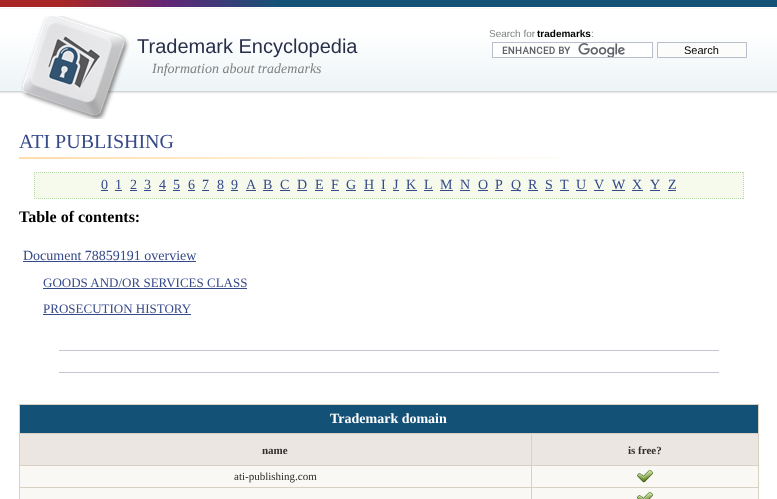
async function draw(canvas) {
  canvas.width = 777
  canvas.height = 499
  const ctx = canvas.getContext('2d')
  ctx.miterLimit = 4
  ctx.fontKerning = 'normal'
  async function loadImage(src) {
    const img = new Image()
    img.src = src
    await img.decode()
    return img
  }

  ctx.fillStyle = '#fff'
  ctx.fillRect(0, 0, 777, 499)
  ctx.drawImage(await loadImage('image0.png'), 0, 8, 777, 86)
  ctx.fillStyle = '#135176'
  ctx.fillRect(275, 0, 502, 7)
  ctx.drawImage(await loadImage('image1.png'), 0, 0, 275, 7)
  ctx.drawImage(await loadImage('image2.png'), 9, 8, 760, 86)
  ctx.drawImage(await loadImage('image3.png'), 21, 16, 109, 103)
  ctx.font = '20px Liberation Sans'
  ctx.fillStyle = '#292f49'
  ctx.fillText('Trademark Encyclopedia', 137, 53)
  ctx.font = 'italic 14px Liberation Serif'
  ctx.fillStyle = '#808080'
  ctx.fillText('Information about trademarks', 152, 73)
  ctx.font = '10px Liberation Sans'
  ctx.fillText('Search for', 489, 37)
  ctx.font = 'bold 10px Liberation Sans'
  ctx.fillStyle = '#000'
  ctx.fillText('trademarks', 537, 37)
  ctx.font = '10px Liberation Sans'
  ctx.fillStyle = '#808080'
  ctx.fillText(':', 591, 37)
  ctx.fillStyle = '#fff'
  ctx.fillRect(493, 43, 159, 14)
  ctx.drawImage(await loadImage('image4.png'), 502, 43, 123, 14)
  ctx.strokeStyle = '#bbbdcd'
  ctx.strokeRect(492.5, 42.5, 160, 15)
  ctx.fillStyle = '#fcfcfa'
  ctx.beginPath()
  ctx.rect(657.5, 42.5, 89, 15)
  ctx.fill()
  ctx.stroke()
  ctx.font = '11px Liberation Sans'
  ctx.fillStyle = '#000'
  ctx.fillText('Search', 684, 54)
  ctx.drawImage(await loadImage('image5.png'), 19, 157, 541, 2)
  ctx.font = '20px Liberation Serif'
  ctx.fillStyle = '#364989'
  ctx.fillText('ATI PUBLISHING', 19, 148)
  ctx.fillStyle = '#f5faec'
  ctx.fillRect(34, 172, 710, 27)
  ctx.beginPath()
  ctx.moveTo(34, 172.5)
  ctx.lineTo(744, 172.5)
  ctx.strokeStyle = '#b7dba8'
  ctx.setLineDash([1, 1])
  ctx.stroke()
  ctx.beginPath()
  ctx.moveTo(743.5, 172)
  ctx.lineTo(743.5, 199)
  ctx.stroke()
  ctx.beginPath()
  ctx.moveTo(34, 198.5)
  ctx.lineTo(744, 198.5)
  ctx.stroke()
  ctx.beginPath()
  ctx.moveTo(34.5, 172)
  ctx.lineTo(34.5, 199)
  ctx.stroke()
  ctx.font = '14px Liberation Serif'
  ctx.fillStyle = '#364989'
  ctx.fillText('0', 101, 189)
  ctx.fillRect(101, 190, 7, 1)
  ctx.fillText('1', 115, 189)
  ctx.fillRect(115, 190, 7, 1)
  ctx.fillText('2', 130, 189)
  ctx.fillRect(130, 190, 7, 1)
  ctx.fillText('3', 144, 189)
  ctx.fillRect(144, 190, 7, 1)
  ctx.fillText('4', 159, 189)
  ctx.fillRect(159, 190, 7, 1)
  ctx.fillText('5', 173, 189)
  ctx.fillRect(173, 190, 7, 1)
  ctx.fillText('6', 188, 189)
  ctx.fillRect(188, 190, 7, 1)
  ctx.fillText('7', 202, 189)
  ctx.fillRect(202, 190, 7, 1)
  ctx.fillText('8', 217, 189)
  ctx.fillRect(217, 190, 7, 1)
  ctx.fillText('9', 231, 189)
  ctx.fillRect(231, 190, 7, 1)
  ctx.fillText('A', 246, 189)
  ctx.fillRect(246, 190, 10, 1)
  ctx.fillText('B', 263, 189)
  ctx.fillRect(263, 190, 10, 1)
  ctx.fillText('C', 280, 189)
  ctx.fillRect(280, 190, 10, 1)
  ctx.fillText('D', 297, 189)
  ctx.fillRect(297, 190, 10, 1)
  ctx.fillText('E', 315, 189)
  ctx.fillRect(315, 190, 8, 1)
  ctx.fillText('F', 331, 189)
  ctx.fillRect(331, 190, 8, 1)
  ctx.fillText('G', 346, 189)
  ctx.fillRect(346, 190, 10, 1)
  ctx.fillText('H', 364, 189)
  ctx.fillRect(364, 190, 10, 1)
  ctx.fillText('I', 381, 189)
  ctx.fillRect(381, 190, 5, 1)
  ctx.fillText('J', 393, 189)
  ctx.fillRect(393, 190, 6, 1)
  ctx.fillText('K', 406, 189)
  ctx.fillRect(406, 190, 11, 1)
  ctx.fillText('L', 424, 189)
  ctx.fillRect(424, 190, 9, 1)
  ctx.fillText('M', 440, 189)
  ctx.fillRect(440, 190, 13, 1)
  ctx.fillText('N', 460, 189)
  ctx.fillRect(460, 190, 10, 1)
  ctx.fillText('O', 478, 189)
  ctx.fillRect(478, 190, 10, 1)
  ctx.fillText('P', 495, 189)
  ctx.fillRect(495, 190, 8, 1)
  ctx.fillRect(511, 190, 10, 1)
  ctx.fillText('Q', 511, 189)
  ctx.fillText('R', 528, 189)
  ctx.fillRect(528, 190, 10, 1)
  ctx.fillText('S', 545, 189)
  ctx.fillRect(545, 190, 8, 1)
  ctx.fillText('T', 560, 189)
  ctx.fillRect(560, 190, 9, 1)
  ctx.fillText('U', 576, 189)
  ctx.fillRect(576, 190, 11, 1)
  ctx.fillText('V', 594, 189)
  ctx.fillRect(594, 190, 10, 1)
  ctx.fillText('W', 612, 189)
  ctx.fillRect(612, 190, 13, 1)
  ctx.fillText('X', 632, 189)
  ctx.fillRect(632, 190, 11, 1)
  ctx.fillText('Y', 650, 189)
  ctx.fillRect(650, 190, 10, 1)
  ctx.fillText('Z', 668, 189)
  ctx.fillRect(668, 190, 8, 1)
  ctx.font = 'bold 16px Liberation Serif'
  ctx.fillStyle = '#000'
  ctx.fillText('Table of contents:', 19, 222)
  ctx.font = '14px Liberation Serif'
  ctx.fillStyle = '#364989'
  ctx.fillText('Document 78859191 overview', 23, 260)
  ctx.fillRect(23, 261, 173, 1)
  ctx.font = '13px Liberation Serif'
  ctx.fillText('GOODS AND/OR SERVICES CLASS', 43, 287)
  ctx.fillRect(43, 288, 204, 1)
  ctx.fillText('PROSECUTION HISTORY', 43, 313)
  ctx.fillRect(43, 314, 148, 1)
  ctx.fillStyle = '#c4c3d7'
  ctx.fillRect(59, 350, 660, 1)
  ctx.fillRect(59, 372, 660, 1)
  ctx.fillStyle = '#faf8f5'
  ctx.fillRect(20, 466, 738, 33)
  ctx.fillStyle = '#135176'
  ctx.fillRect(20, 405, 738, 28)
  ctx.fillStyle = '#d8d1c1'
  ctx.fillRect(19, 404, 740, 1)
  ctx.fillRect(531, 433, 228, 1)
  ctx.fillRect(531, 465, 228, 1)
  ctx.fillRect(531, 487, 228, 1)
  ctx.fillRect(758, 487, 1, 12)
  ctx.fillRect(758, 465, 1, 23)
  ctx.fillRect(758, 433, 1, 33)
  ctx.fillRect(758, 404, 1, 30)
  ctx.fillRect(531, 487, 1, 12)
  ctx.fillRect(19, 487, 513, 1)
  ctx.fillRect(531, 465, 1, 23)
  ctx.fillRect(19, 465, 513, 1)
  ctx.fillRect(531, 433, 1, 33)
  ctx.fillRect(19, 433, 513, 1)
  ctx.fillRect(19, 487, 1, 12)
  ctx.fillRect(19, 465, 1, 23)
  ctx.fillRect(19, 433, 1, 33)
  ctx.fillRect(19, 404, 1, 30)
  ctx.font = 'bold 14px Liberation Serif'
  ctx.fillStyle = '#fff'
  ctx.fillText('Trademark domain', 330, 423)
  ctx.fillStyle = '#ebe6e1'
  ctx.fillRect(20, 434, 511, 31)
  ctx.font = 'bold 11px Liberation Serif'
  ctx.fillStyle = '#2e2c2c'
  ctx.fillText('name', 262, 454)
  ctx.fillStyle = '#ebe6e1'
  ctx.fillRect(532, 434, 226, 31)
  ctx.fillStyle = '#2e2c2c'
  ctx.fillText('is free?', 628, 454)
  ctx.font = '11px Liberation Serif'
  ctx.fillText('ati-publishing.com', 234, 480)
  ctx.drawImage(await loadImage('image6.png'), 637, 469, 16, 14)
  ctx.drawImage(await loadImage('image7.png'), 637, 491, 16, 8)
}

draw(document.querySelector('canvas'))
